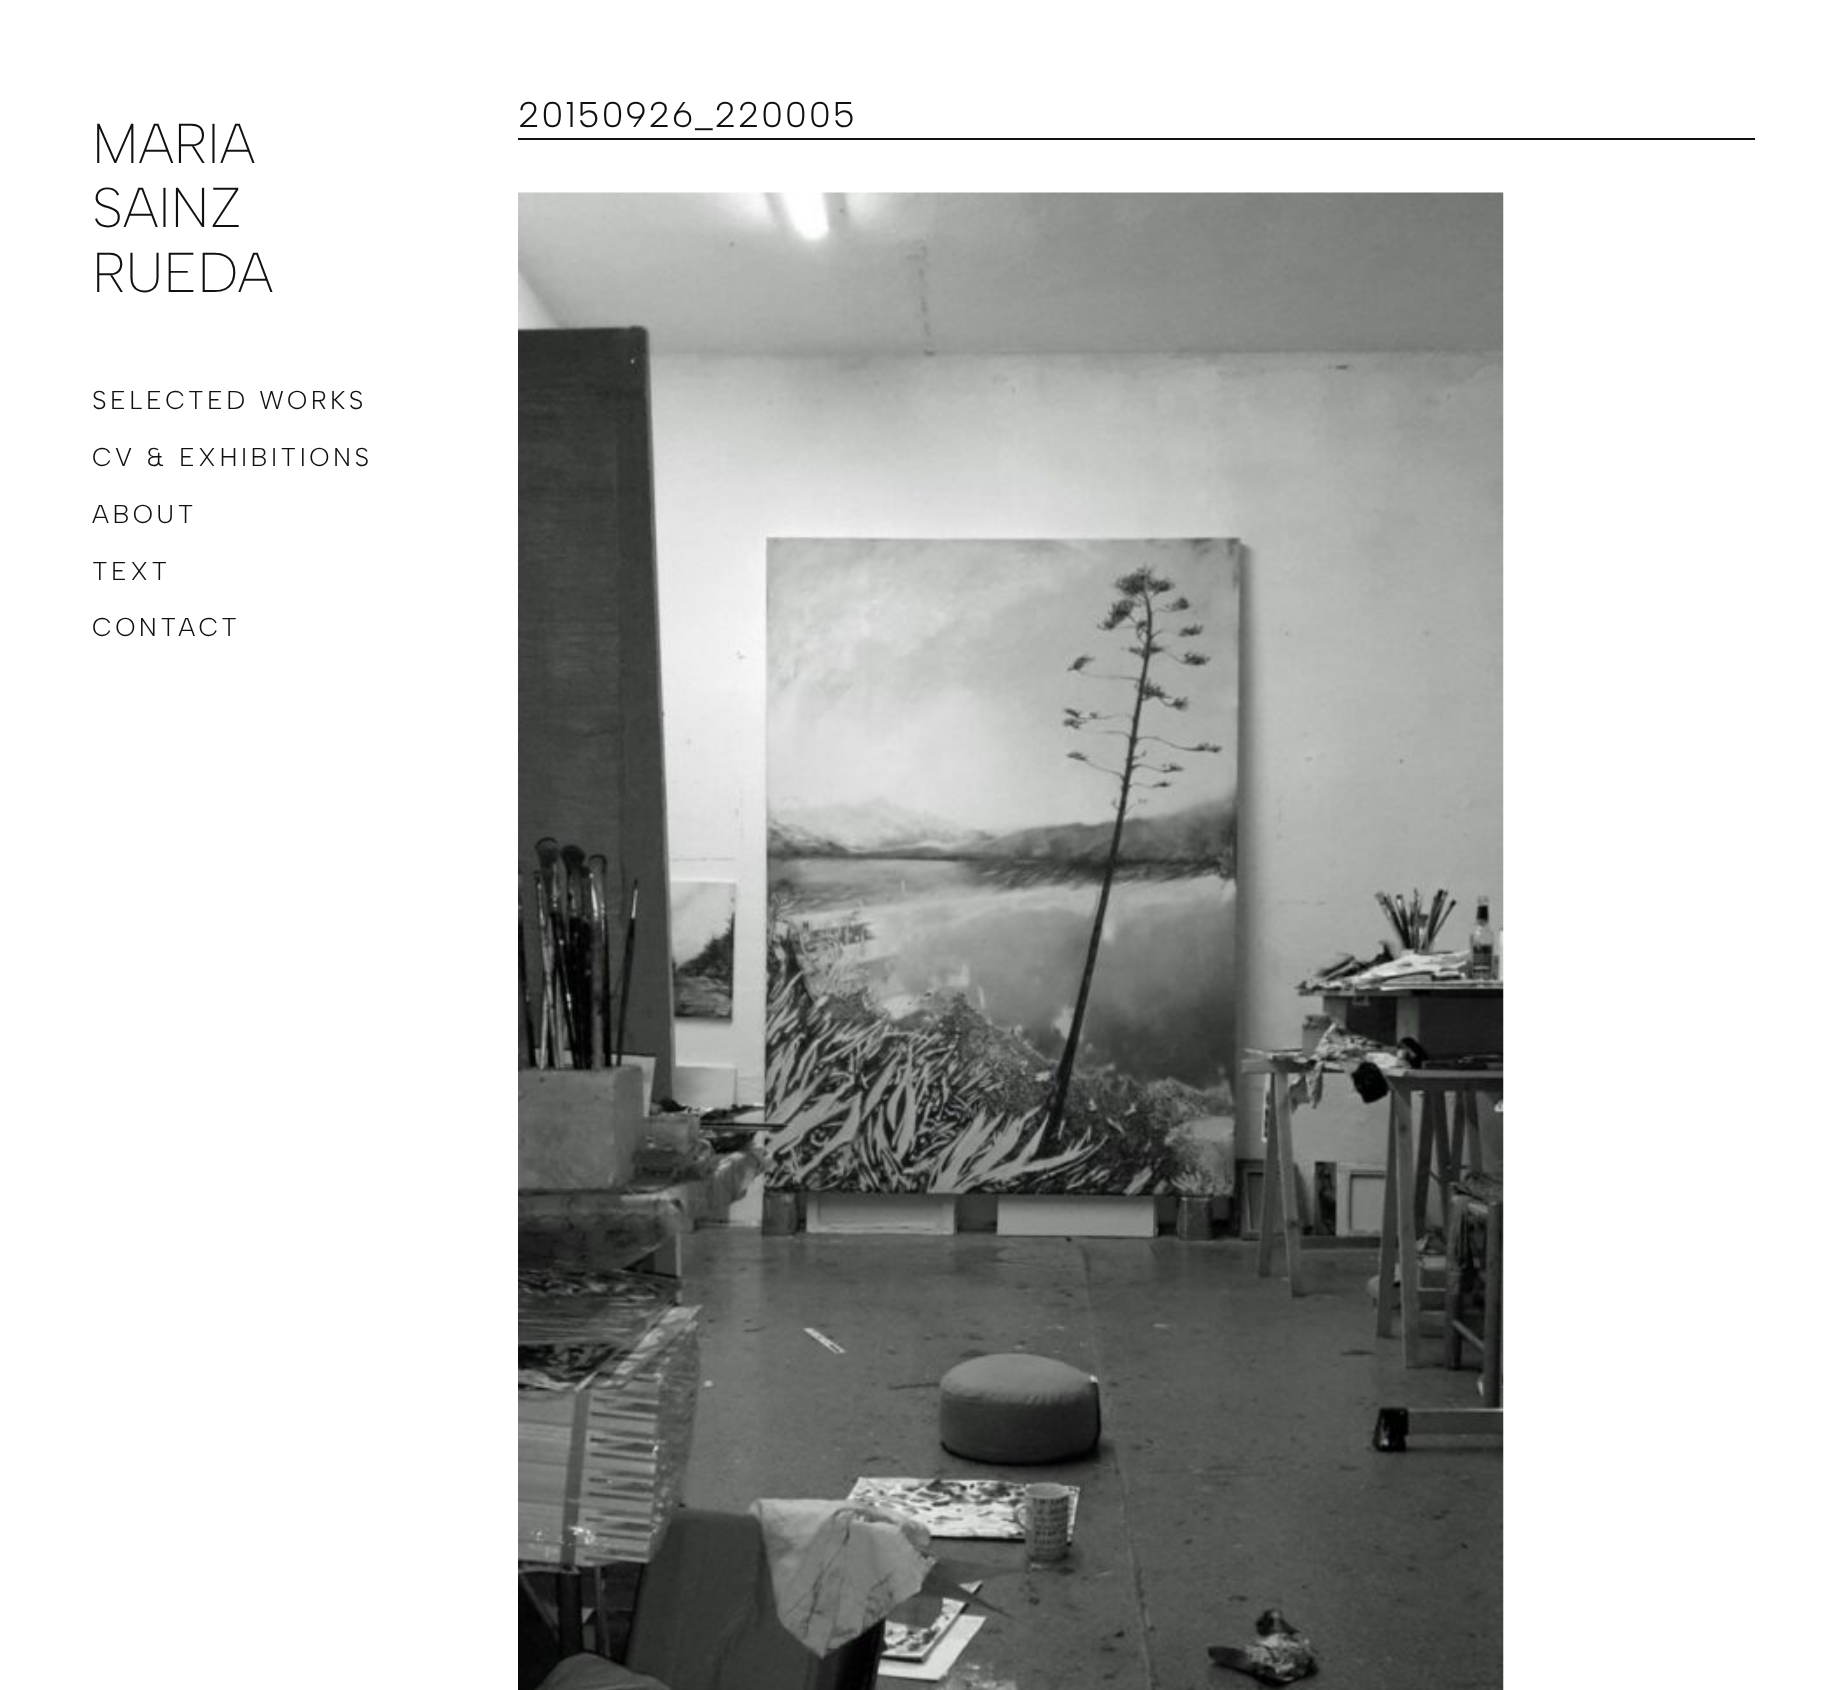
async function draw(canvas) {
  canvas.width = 1847
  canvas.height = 1690
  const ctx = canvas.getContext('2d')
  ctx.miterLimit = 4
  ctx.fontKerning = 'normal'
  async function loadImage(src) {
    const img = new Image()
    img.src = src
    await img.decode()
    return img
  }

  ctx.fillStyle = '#fff'
  ctx.fillRect(0, 0, 1847, 1690)
  ctx.fillStyle = '#111'
  ctx.fillRect(518, 138, 1237, 2)
  ctx.letterSpacing = '1.75px'
  ctx.font = '300 35.75px Albert Sans'
  ctx.fillText('20150926_220005', 518, 127)
  ctx.drawImage(await loadImage('image0.png'), 518, 192, 986, 1498)
  ctx.letterSpacing = '0px'
  ctx.font = '200 56px Albert Sans'
  ctx.fillText('MARIA', 92, 163)
  ctx.fillText('SAINZ', 92, 227)
  ctx.fillText('RUEDA', 92, 292)
  ctx.letterSpacing = '3.5px'
  ctx.font = '300 25.9px Albert Sans'
  ctx.fillText('SELECTED WORKS', 92, 409)
  ctx.fillText('CV & EXHIBITIONS', 92, 466)
  ctx.fillText('ABOUT', 92, 523)
  ctx.fillText('TEXT', 92, 580)
  ctx.fillText('CONTACT', 92, 636)
}

draw(document.querySelector('canvas'))
